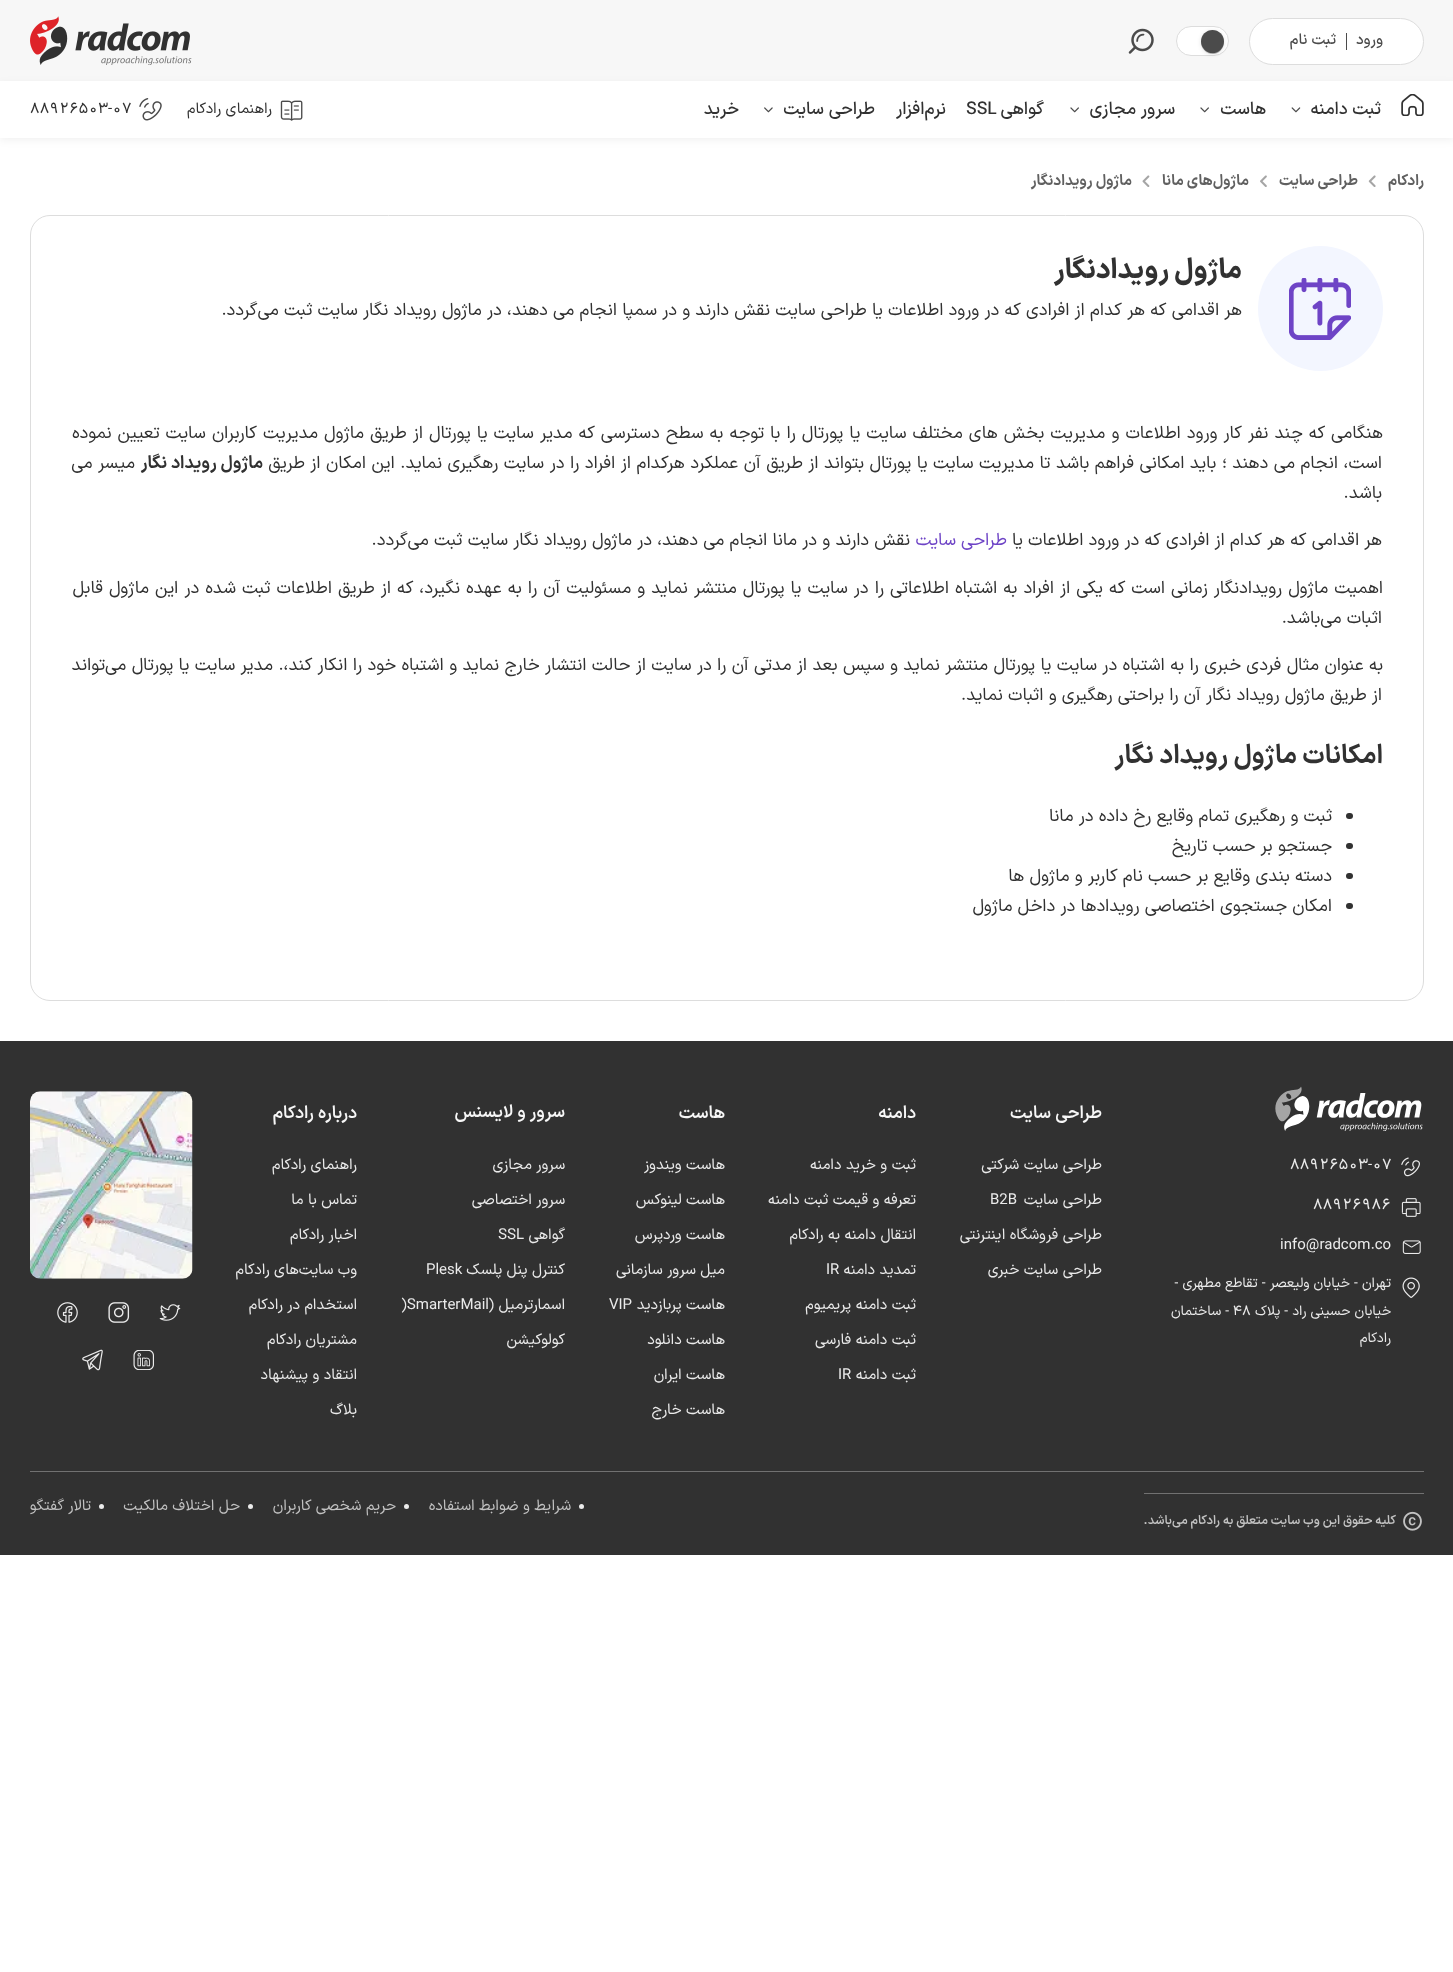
async function draw(canvas) {
  canvas.width = 1453
  canvas.height = 1972
  const ctx = canvas.getContext('2d')
  ctx.miterLimit = 4
  ctx.fontKerning = 'normal'
  async function loadImage(src) {
    const img = new Image()
    img.src = src
    await img.decode()
    return img
  }

  ctx.fillStyle = '#fff'
  ctx.fillRect(0, 0, 1453, 1972)
  ctx.fillStyle = '#f7f7f7'
  ctx.fillRect(0, 0, 1453, 81)
  ctx.fillStyle = '#fff'
  ctx.beginPath()
  ctx.roundRect(1249.5, 18.5, 174, 46, 23)
  ctx.fill()
  ctx.strokeStyle = '#ddd'
  ctx.stroke()
  ctx.direction = 'rtl'
  ctx.font = '500 15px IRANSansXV'
  ctx.fillStyle = '#4b4b4b'
  ctx.fillText('ورود', 1383, 44)
  ctx.fillRect(1346, 33, 1, 17)
  ctx.fillText('ثبت‌ نام', 1336, 44)
  ctx.fillStyle = '#fff'
  ctx.beginPath()
  ctx.roundRect(1176.5, 26.5, 52, 29, 14.5)
  ctx.fill()
  ctx.stroke()
  ctx.fillStyle = '#0000001f'
  ctx.filter = 'blur(2px)'
  ctx.beginPath()
  ctx.roundRect(1201, 31, 23, 23, 11.5)
  ctx.fill()
  ctx.filter = 'none'
  ctx.fillStyle = '#00000024'
  ctx.filter = 'blur(0.5px)'
  ctx.beginPath()
  ctx.roundRect(1201, 31, 23, 23, 11.5)
  ctx.fill()
  ctx.filter = 'none'
  ctx.fillStyle = '#00000033'
  ctx.filter = 'blur(0.5px)'
  ctx.beginPath()
  ctx.roundRect(1203, 34, 20, 20, 10)
  ctx.fill()
  ctx.filter = 'none'
  ctx.fillStyle = '#4b4b4b'
  ctx.beginPath()
  ctx.arc(1212.5, 41.5, 11.5, 0, 2 * Math.PI)
  ctx.fill()
  ctx.drawImage(await loadImage('image0.png'), 1128, 28, 26, 26)
  ctx.drawImage(await loadImage('image1.png'), 30, 16, 162, 49)
  ctx.fillStyle = '#0000000f'
  ctx.filter = 'blur(4px)'
  ctx.beginPath()
  ctx.rect(0, 84, 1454, 56)
  ctx.fill()
  ctx.filter = 'none'
  ctx.fillStyle = '#fff'
  ctx.fillRect(0, 81, 1453, 57)
  ctx.drawImage(await loadImage('image2.png'), 1401, 94, 23, 22)
  ctx.font = '500 17.5px IRANSansXV'
  ctx.fillStyle = '#313131'
  ctx.fillText('ثبت دامنه', 1381, 114)
  ctx.drawImage(await loadImage('image3.png'), 1291, 107, 10, 6)
  ctx.fillText('هاست', 1266, 114)
  ctx.drawImage(await loadImage('image4.png'), 1200, 107, 9, 6)
  ctx.fillText('سرور مجازی', 1175, 114)
  ctx.drawImage(await loadImage('image4.png'), 1070, 107, 9, 6)
  ctx.fillText('گواهی', 1044, 114)
  ctx.direction = 'ltr'
  ctx.fillText('SSL', 966, 114)
  ctx.direction = 'rtl'
  ctx.fillText('نرم‌افزار', 946, 114)
  ctx.fillText('طراحی سایت', 875, 114)
  ctx.drawImage(await loadImage('image5.png'), 764, 107, 9, 6)
  ctx.fillText('خرید', 739, 114)
  ctx.drawImage(await loadImage('image6.png'), 280, 100, 23, 21)
  ctx.font = '15px IRANSansXV'
  ctx.fillText('راهنمای رادکام', 272, 113)
  ctx.drawImage(await loadImage('image7.png'), 139, 98, 23, 23)
  ctx.direction = 'ltr'
  ctx.font = '15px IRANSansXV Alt'
  ctx.fillText('88926503-07', 30, 113)
  ctx.direction = 'rtl'
  ctx.font = 'bold 15px IRANSansXV'
  ctx.fillStyle = '#606060'
  ctx.fillText('رادکام', 1424, 185)
  ctx.drawImage(await loadImage('image8.png'), 1368, 175, 8, 12)
  ctx.fillText('طراحی سایت', 1358, 185)
  ctx.drawImage(await loadImage('image9.png'), 1260, 175, 7, 12)
  ctx.fillText('ماژول‌های مانا', 1249, 185)
  ctx.drawImage(await loadImage('image10.png'), 1142, 175, 8, 12)
  ctx.fillText('ماژول رویدادنگار', 1132, 185)
  ctx.beginPath()
  ctx.roundRect(30.5, 215.5, 1393, 785, 19.5)
  ctx.stroke()
  ctx.fillStyle = '#f3f6ff'
  ctx.beginPath()
  ctx.arc(1320.5, 308.5, 62.5, 0, 2 * Math.PI)
  ctx.fill()
  ctx.drawImage(await loadImage('image11.png'), 1289, 278, 62, 62)
  ctx.font = '800 27.5px IRANSansXV'
  ctx.fillStyle = '#313131'
  ctx.fillText('ماژول رویدادنگار', 1242, 278)
  ctx.font = '17.5px IRANSansXV'
  ctx.fillText('هر اقدامی که هر کدام از افرادی که در ورود اطلاعات یا طراحی سایت نقش دارند و در سمپا انجام می دهند، در ماژول رویداد نگار سایت ثبت می‌گردد.', 1242, 315)
  ctx.wordSpacing = '0.8px'
  ctx.fillText('هنگامی که چند نفر کار ورود اطلاعات و مدیریت بخش های مختلف سایت یا پورتال را با توجه به سطح دسترسی که مدیر سایت یا پورتال از طریق ماژول مدیریت کاربران سایت تعیین نموده', 1383, 438)
  ctx.wordSpacing = '0.3px'
  ctx.fillText('است، انجام می دهند ؛ باید امکانی فراهم باشد تا مدیریت سایت یا پورتال بتواند از طریق آن عملکرد هرکدام از افراد را در سایت رهگیری نماید. این امکان از طریق', 1382, 468)
  ctx.font = 'bold 17.5px IRANSansXV'
  ctx.fillText('ماژول رویداد نگار', 263, 468)
  ctx.font = '17.5px IRANSansXV'
  ctx.fillText('میسر می', 135, 468)
  ctx.wordSpacing = '0px'
  ctx.fillText('باشد.', 1382, 498)
  ctx.fillText('هر اقدامی که هر کدام از افرادی که در ورود اطلاعات یا', 1382, 545)
  ctx.fillStyle = '#6e44c6'
  ctx.fillText('طراحی سایت', 1007, 545)
  ctx.fillStyle = '#313131'
  ctx.fillText('نقش دارند و در مانا انجام می دهند، در ماژول رویداد نگار سایت ثبت می‌گردد.', 910, 545)
  ctx.wordSpacing = '0.85px'
  ctx.fillText('اهمیت ماژول رویدادنگار زمانی است که یکی از افراد به اشتباه اطلاعاتی را در سایت یا پورتال منتشر نماید و مسئولیت آن را به عهده نگیرد، که از طریق اطلاعات ثبت شده در این ماژول قابل', 1383, 593)
  ctx.wordSpacing = '0px'
  ctx.fillText('اثبات می‌باشد.', 1382, 623)
  ctx.wordSpacing = '0.15px'
  ctx.fillText('به عنوان مثال فردی خبری را به اشتباه در سایت یا پورتال منتشر نماید و سپس بعد از مدتی آن را در سایت از حالت انتشار خارج نماید و اشتباه خود را انکار کند،. مدیر سایت یا پورتال می‌تواند', 1383, 670)
  ctx.wordSpacing = '0px'
  ctx.fillText('از طریق ماژول رویداد نگار آن را براحتی رهگیری و اثبات نماید.', 1382, 700)
  ctx.font = 'bold 26.25px IRANSansXV'
  ctx.fillText('امکانات ماژول رویداد نگار', 1383, 763)
  ctx.beginPath()
  ctx.roundRect(1346, 813, 7, 6, 3)
  ctx.fill()
  ctx.font = '17.5px IRANSansXV'
  ctx.fillText('ثبت و رهگیری تمام وقایع رخ داده در مانا', 1332, 821)
  ctx.beginPath()
  ctx.roundRect(1346, 843, 7, 6, 3)
  ctx.fill()
  ctx.fillText('جستجو بر حسب تاریخ', 1332, 851)
  ctx.beginPath()
  ctx.roundRect(1346, 873, 7, 6, 3)
  ctx.fill()
  ctx.fillText('دسته بندی وقایع بر حسب نام کاربر و ماژول ها', 1332, 881)
  ctx.beginPath()
  ctx.roundRect(1346, 903, 7, 6, 3)
  ctx.fill()
  ctx.fillText('امکان جستجوی اختصاصی رویدادها در داخل ماژول', 1332, 911)
  ctx.fillRect(0, 1041, 1453, 514)
  ctx.drawImage(await loadImage('image12.png'), 1275, 1086, 148, 45)
  ctx.drawImage(await loadImage('image13.png'), 1401, 1157, 19, 20)
  ctx.direction = 'ltr'
  ctx.font = '15px IRANSansXV Alt'
  ctx.fillStyle = '#ebebeb'
  ctx.fillText('88926503-07', 1290, 1169)
  ctx.drawImage(await loadImage('image14.png'), 1401, 1198, 20, 19)
  ctx.fillText('88926986', 1313, 1209)
  ctx.drawImage(await loadImage('image15.png'), 1402, 1240, 19, 14)
  ctx.font = '15px IRANSansXV'
  ctx.fillText('info@radcom.co', 1280, 1249)
  ctx.drawImage(await loadImage('image16.png'), 1402, 1277, 18, 21)
  ctx.direction = 'rtl'
  ctx.font = '13.75px IRANSansXV'
  ctx.fillText('تهران - خیابان ولیعصر - تقاطع مطهری -', 1391, 1287)
  ctx.fillText('خیابان حسینی راد - پلاک', 1391, 1315)
  ctx.direction = 'ltr'
  ctx.font = '13.75px IRANSansXV Alt'
  ctx.fillText('48', 1233, 1315)
  ctx.direction = 'rtl'
  ctx.font = '13.75px IRANSansXV'
  ctx.fillText('- ساختمان', 1229, 1315)
  ctx.fillText('رادکام', 1391, 1342)
  ctx.font = '600 17.5px IRANSansXV'
  ctx.fillStyle = '#f7f7f7'
  ctx.fillText('طراحی سایت', 1102, 1118)
  ctx.font = '15px IRANSansXV'
  ctx.fillStyle = '#ebebeb'
  ctx.fillText('طراحی سایت شرکتی', 1102, 1169)
  ctx.fillText('طراحی سایت', 1102, 1204)
  ctx.direction = 'ltr'
  ctx.fillText('B2B', 990, 1204)
  ctx.direction = 'rtl'
  ctx.fillText('طراحی فروشگاه اینترنتی', 1102, 1239)
  ctx.fillText('طراحی سایت خبری', 1102, 1274)
  ctx.font = '600 17.5px IRANSansXV'
  ctx.fillStyle = '#f7f7f7'
  ctx.fillText('دامنه', 916, 1118)
  ctx.font = '15px IRANSansXV'
  ctx.fillStyle = '#ebebeb'
  ctx.fillText('ثبت و خرید دامنه', 916, 1169)
  ctx.fillText('تعرفه و قیمت ثبت دامنه', 916, 1204)
  ctx.fillText('انتقال دامنه به رادکام', 916, 1239)
  ctx.fillText('تمدید دامنه', 916, 1274)
  ctx.direction = 'ltr'
  ctx.fillText('IR', 826, 1274)
  ctx.direction = 'rtl'
  ctx.fillText('ثبت دامنه پریمیوم', 916, 1309)
  ctx.fillText('ثبت دامنه فارسی', 916, 1344)
  ctx.fillText('ثبت دامنه', 916, 1379)
  ctx.direction = 'ltr'
  ctx.fillText('IR', 838, 1379)
  ctx.direction = 'rtl'
  ctx.font = '600 17.5px IRANSansXV'
  ctx.fillStyle = '#f7f7f7'
  ctx.fillText('هاست', 725, 1118)
  ctx.font = '15px IRANSansXV'
  ctx.fillStyle = '#ebebeb'
  ctx.fillText('هاست ویندوز', 725, 1169)
  ctx.fillText('هاست لینوکس', 725, 1204)
  ctx.fillText('هاست وردپرس', 725, 1239)
  ctx.fillText('میل سرور سازمانی', 725, 1274)
  ctx.fillText('هاست پربازدید', 725, 1309)
  ctx.direction = 'ltr'
  ctx.fillText('VIP', 609, 1309)
  ctx.direction = 'rtl'
  ctx.fillText('هاست دانلود', 725, 1344)
  ctx.fillText('هاست ایران', 725, 1379)
  ctx.fillText('هاست خارج', 725, 1414)
  ctx.font = '600 17.5px IRANSansXV'
  ctx.fillStyle = '#f7f7f7'
  ctx.fillText('سرور و لایسنس', 565, 1117)
  ctx.font = '15px IRANSansXV'
  ctx.fillStyle = '#ebebeb'
  ctx.fillText('سرور مجازی', 565, 1169)
  ctx.fillText('سرور اختصاصی', 565, 1204)
  ctx.fillText('گواهی', 565, 1239)
  ctx.direction = 'ltr'
  ctx.fillText('SSL', 498, 1239)
  ctx.direction = 'rtl'
  ctx.fillText('کنترل پنل پلسک', 565, 1274)
  ctx.direction = 'ltr'
  ctx.fillText('Plesk', 426, 1274)
  ctx.direction = 'rtl'
  ctx.fillText('اسمارترمیل (', 565, 1309)
  ctx.direction = 'ltr'
  ctx.fillText(')SmarterMail', 401, 1309)
  ctx.direction = 'rtl'
  ctx.fillText('کولوکیشن', 565, 1344)
  ctx.font = '600 17.5px IRANSansXV'
  ctx.fillStyle = '#f7f7f7'
  ctx.fillText('درباره رادکام', 357, 1118)
  ctx.font = '15px IRANSansXV'
  ctx.fillStyle = '#ebebeb'
  ctx.fillText('راهنمای رادکام', 357, 1169)
  ctx.fillText('تماس با ما', 357, 1204)
  ctx.fillText('اخبار رادکام', 357, 1239)
  ctx.fillText('وب سایت‌های رادکام', 357, 1274)
  ctx.fillText('استخدام در رادکام', 357, 1309)
  ctx.fillText('مشتریان رادکام', 357, 1344)
  ctx.fillText('انتقاد و پیشنهاد', 357, 1379)
  ctx.fillText('بلاگ', 357, 1414)
  ctx.drawImage(await loadImage('image17.png'), 30, 1091, 163, 188)
  ctx.drawImage(await loadImage('image18.png'), 159, 1304, 22, 17)
  ctx.drawImage(await loadImage('image19.png'), 108, 1302, 22, 21)
  ctx.drawImage(await loadImage('image20.png'), 57, 1302, 21, 21)
  ctx.drawImage(await loadImage('image21.png'), 133, 1350, 21, 20)
  ctx.drawImage(await loadImage('image22.png'), 82, 1349, 21, 22)
  ctx.fillStyle = '#717171'
  ctx.fillRect(30, 1471, 1394, 1)
  ctx.fillStyle = '#ebebeb'
  ctx.beginPath()
  ctx.arc(581.5, 1506.5, 2.5, 0, 2 * Math.PI)
  ctx.fill()
  ctx.fillStyle = '#c2c2c2'
  ctx.fillText('شرایط و ضوابط استفاده', 571, 1510)
  ctx.fillStyle = '#ebebeb'
  ctx.beginPath()
  ctx.arc(406.5, 1506.5, 2.5, 0, 2 * Math.PI)
  ctx.fill()
  ctx.fillStyle = '#c2c2c2'
  ctx.fillText('حریم شخصی کاربران', 396, 1510)
  ctx.fillStyle = '#ebebeb'
  ctx.beginPath()
  ctx.arc(250.5, 1506.5, 2.5, 0, 2 * Math.PI)
  ctx.fill()
  ctx.fillStyle = '#c2c2c2'
  ctx.fillText('حل اختلاف مالکیت', 240, 1510)
  ctx.fillStyle = '#ebebeb'
  ctx.beginPath()
  ctx.arc(101.5, 1506.5, 2.5, 0, 2 * Math.PI)
  ctx.fill()
  ctx.fillStyle = '#c2c2c2'
  ctx.fillText('تالار گفتگو', 91, 1510)
  ctx.fillStyle = '#717171'
  ctx.fillRect(1144, 1493, 280, 1)
  ctx.drawImage(await loadImage('image23.png'), 1403, 1511, 19, 20)
  ctx.font = '600 12.5px IRANSansXV'
  ctx.fillStyle = '#c2c2c2'
  ctx.fillText('کلیه حقوق این وب سایت متعلق به رادکام می‌باشد.', 1396, 1524)
}

draw(document.querySelector('canvas'))
